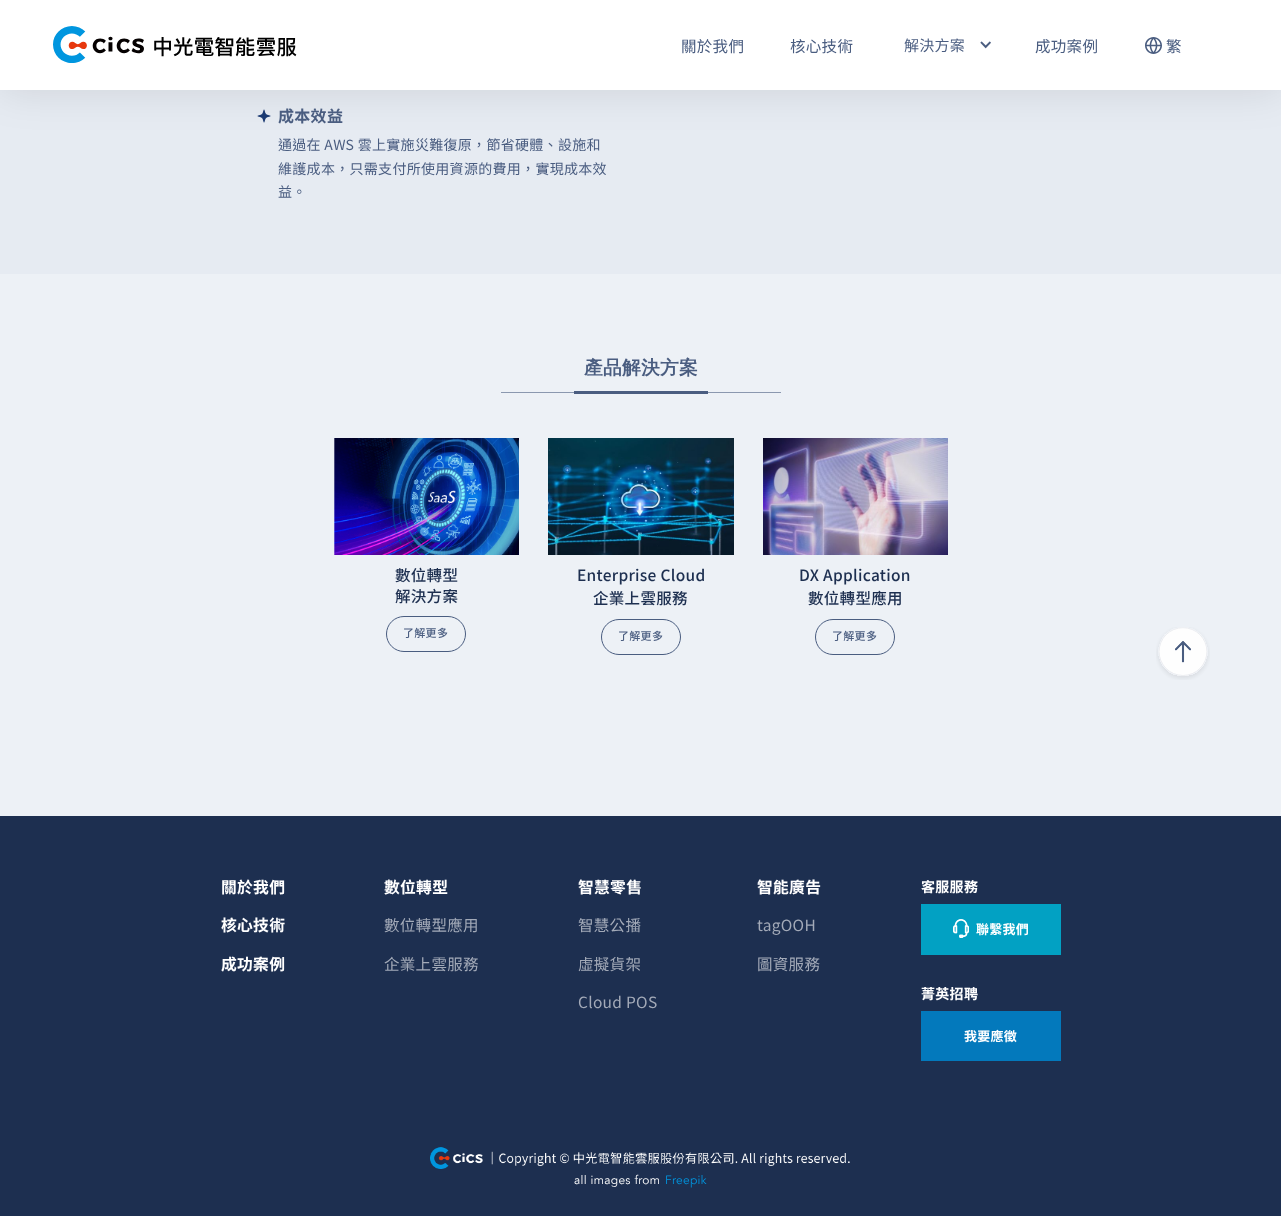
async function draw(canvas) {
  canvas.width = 1281
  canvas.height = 1216
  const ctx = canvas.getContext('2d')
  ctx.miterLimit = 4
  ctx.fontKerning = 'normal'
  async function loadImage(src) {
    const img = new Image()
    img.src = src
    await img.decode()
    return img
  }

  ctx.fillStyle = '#edf1f6'
  ctx.fillRect(0, 0, 1281, 1216)
  ctx.fillStyle = '#e6ebf2'
  ctx.fillRect(0, 90, 1281, 184)
  ctx.drawImage(await loadImage('image3.png'), 257, 109, 14, 14)
  ctx.fillStyle = '#0000001a'
  ctx.filter = 'blur(20px)'
  ctx.beginPath()
  ctx.rect(1, 1, 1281, 90)
  ctx.fill()
  ctx.filter = 'none'
  ctx.fillStyle = '#fff'
  ctx.fillRect(0, 0, 1281, 90)
  ctx.drawImage(await loadImage('image0.png'), 53, 26, 244, 37)
  ctx.letterSpacing = '0.3px'
  ctx.font = '15.5px Noto Sans TC'
  ctx.fillStyle = '#4a5d80'
  ctx.fillText('關於我們', 681, 52)
  ctx.fillText('核心技術', 790, 52)
  ctx.letterSpacing = '0.25px'
  ctx.font = '15px Noto Sans TC'
  ctx.fillText('解決方案', 904, 51)
  ctx.drawImage(await loadImage('image1.png'), 980, 41, 11, 8)
  ctx.letterSpacing = '0.3px'
  ctx.font = '15.5px Noto Sans TC'
  ctx.fillText('成功案例', 1035, 52)
  ctx.drawImage(await loadImage('image2.png'), 1145, 37, 17, 17)
  ctx.fillText('繁', 1166, 52)
  ctx.font = 'bold 16px Noto Sans TC'
  ctx.fillText('成本效益', 278, 122)
  ctx.font = '14px Noto Sans TC'
  ctx.fillText('通過在 AWS 雲上實施災難復原，節省硬體、設施和', 278, 150)
  ctx.fillText('維護成本，只需支付所使用資源的費用，實現成本效', 278, 174)
  ctx.fillText('益。', 278, 197)
  ctx.letterSpacing = '0.25px'
  ctx.font = 'bold 18.75px WenQuanYi Zen Hei'
  ctx.fillText('產品解決方案', 584, 374)
  ctx.fillStyle = '#8b98af'
  ctx.fillRect(501, 392, 280, 1)
  ctx.fillStyle = '#4a5d80'
  ctx.fillRect(574, 391, 134, 3)
  ctx.drawImage(await loadImage('image4.png'), 334, 438, 185, 117)
  ctx.letterSpacing = '0.3px'
  ctx.font = '500 15.5px Noto Sans TC'
  ctx.fillStyle = '#1d2f50'
  ctx.fillText('數位轉型', 395, 581)
  ctx.fillText('解決方案', 395, 602)
  ctx.beginPath()
  ctx.roundRect(386.5, 616.5, 79, 35, 17.5)
  ctx.strokeStyle = '#4a5d80'
  ctx.stroke()
  ctx.font = '500 11px Noto Sans TC'
  ctx.fillStyle = '#4a5d80'
  ctx.fillText('了解更多', 403, 637)
  ctx.drawImage(await loadImage('image5.png'), 548, 438, 186, 117)
  ctx.font = '500 15.5px Noto Sans TC'
  ctx.fillStyle = '#1d2f50'
  ctx.fillText('Enterprise Cloud', 577, 581)
  ctx.fillText('企業上雲服務', 593, 604)
  ctx.beginPath()
  ctx.roundRect(601.5, 619.5, 79, 35, 17.5)
  ctx.stroke()
  ctx.font = '500 11px Noto Sans TC'
  ctx.fillStyle = '#4a5d80'
  ctx.fillText('了解更多', 618, 640)
  ctx.drawImage(await loadImage('image6.png'), 763, 438, 185, 117)
  ctx.font = '500 15.5px Noto Sans TC'
  ctx.fillStyle = '#1d2f50'
  ctx.fillText('DX Application', 799, 581)
  ctx.fillText('數位轉型應用', 808, 604)
  ctx.beginPath()
  ctx.roundRect(815.5, 619.5, 79, 35, 17.5)
  ctx.stroke()
  ctx.font = '500 11px Noto Sans TC'
  ctx.fillStyle = '#4a5d80'
  ctx.fillText('了解更多', 832, 640)
  ctx.drawImage(await loadImage('image7.png'), 1156, 627, 54, 53)
  ctx.fillStyle = '#1d2f50'
  ctx.fillRect(0, 816, 1281, 400)
  ctx.font = 'bold 15.75px Noto Sans TC'
  ctx.fillStyle = '#fff'
  ctx.fillText('關於我們', 221, 893)
  ctx.fillText('核心技術', 221, 931)
  ctx.fillText('成功案例', 221, 970)
  ctx.fillText('數位轉型', 384, 893)
  ctx.font = '15.5px Noto Sans TC'
  ctx.fillStyle = '#a3aab8'
  ctx.fillText('數位轉型應用', 384, 931)
  ctx.fillText('企業上雲服務', 384, 970)
  ctx.font = 'bold 15.75px Noto Sans TC'
  ctx.fillStyle = '#fff'
  ctx.fillText('智慧零售', 578, 893)
  ctx.font = '15.5px Noto Sans TC'
  ctx.fillStyle = '#a3aab8'
  ctx.fillText('智慧公播', 578, 931)
  ctx.fillText('虛擬貨架', 578, 970)
  ctx.fillText('Cloud POS', 578, 1008)
  ctx.font = 'bold 15.75px Noto Sans TC'
  ctx.fillStyle = '#fff'
  ctx.fillText('智能廣告', 757, 893)
  ctx.font = '15.5px Noto Sans TC'
  ctx.fillStyle = '#a3aab8'
  ctx.fillText('tagOOH', 757, 931)
  ctx.fillText('圖資服務', 757, 970)
  ctx.font = 'bold 14px Noto Sans TC'
  ctx.fillStyle = '#fff'
  ctx.fillText('客服服務', 921, 892)
  ctx.fillStyle = '#02a1c3'
  ctx.fillRect(921, 904, 140, 51)
  ctx.drawImage(await loadImage('image8.png'), 953, 919, 16, 19)
  ctx.letterSpacing = '0.25px'
  ctx.font = 'bold 13px Noto Sans TC'
  ctx.fillStyle = '#fff'
  ctx.fillText('聯繫我們', 976, 934)
  ctx.letterSpacing = '0.3px'
  ctx.font = 'bold 14px Noto Sans TC'
  ctx.fillText('菁英招聘', 921, 999)
  ctx.fillStyle = '#0379bc'
  ctx.fillRect(921, 1011, 140, 50)
  ctx.letterSpacing = '0.25px'
  ctx.font = 'bold 13px Noto Sans TC'
  ctx.fillStyle = '#fff'
  ctx.fillText('我要應徵', 964, 1041)
  ctx.drawImage(await loadImage('image9.png'), 430, 1147, 420, 22)
  ctx.letterSpacing = '0.3px'
  ctx.font = '12px Avenir'
  ctx.fillText('all images from', 574, 1184)
  ctx.fillStyle = '#0096e0'
  ctx.fillText('Freepik', 665, 1184)
}

draw(document.querySelector('canvas'))
